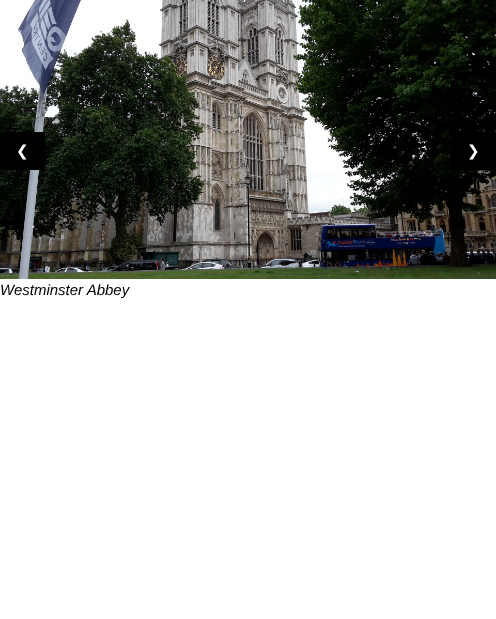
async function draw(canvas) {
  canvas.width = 496
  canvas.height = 619
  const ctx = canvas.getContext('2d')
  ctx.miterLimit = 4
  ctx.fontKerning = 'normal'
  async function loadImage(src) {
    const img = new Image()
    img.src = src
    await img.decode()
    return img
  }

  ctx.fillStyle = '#fff'
  ctx.fillRect(0, 0, 496, 619)
  ctx.drawImage(await loadImage('image0.png'), 0, 0, 496, 279)
  ctx.fillStyle = '#000'
  ctx.fillRect(0, 132, 45, 38)
  ctx.font = '15px DejaVu Sans'
  ctx.fillStyle = '#fff'
  ctx.fillText('❮', 16, 156)
  ctx.fillStyle = '#000'
  ctx.fillRect(451, 132, 45, 38)
  ctx.fillStyle = '#fff'
  ctx.fillText('❯', 467, 156)
  ctx.font = 'italic 15px Liberation Sans'
  ctx.fillStyle = '#000'
  ctx.fillText('Westminster Abbey', 0, 295)
}

draw(document.querySelector('canvas'))
